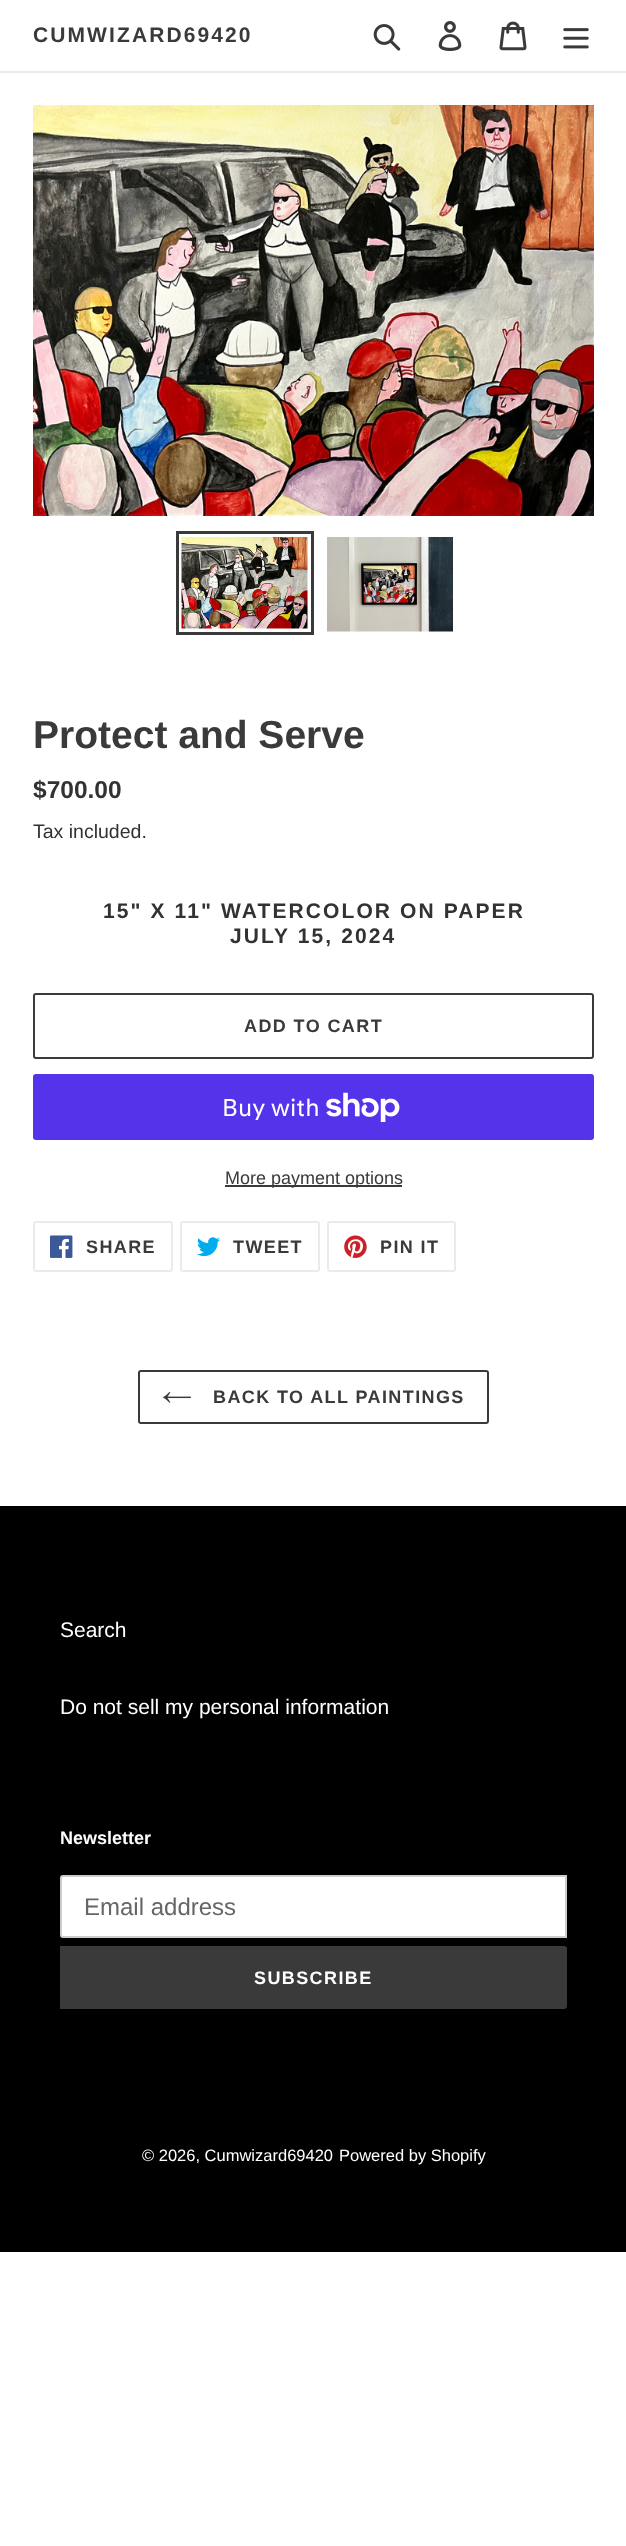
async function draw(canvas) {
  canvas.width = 626
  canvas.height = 2546
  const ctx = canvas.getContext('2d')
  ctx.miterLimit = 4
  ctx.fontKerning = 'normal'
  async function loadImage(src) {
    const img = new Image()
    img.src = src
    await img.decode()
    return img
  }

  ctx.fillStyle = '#fff'
  ctx.fillRect(0, 0, 626, 2546)
  ctx.fillStyle = '#ebebeb'
  ctx.fillRect(0, 71, 626, 2)
  ctx.letterSpacing = '2.1px'
  ctx.font = 'bold 21px Liberation Sans'
  ctx.fillStyle = '#3a3a3a'
  ctx.fillText('CUMWIZARD69420', 33, 42)
  ctx.drawImage(await loadImage('image0.png'), 373, 24, 28, 27)
  ctx.drawImage(await loadImage('image1.png'), 438, 21, 24, 30)
  ctx.drawImage(await loadImage('image2.png'), 499, 21, 28, 30)
  ctx.drawImage(await loadImage('image3.png'), 563, 28, 26, 21)
  ctx.drawImage(await loadImage('image4.png'), 33, 105, 561, 411)
  ctx.strokeStyle = '#3a3a3a'
  ctx.lineWidth = 3
  ctx.strokeRect(177.5, 532.5, 135, 101)
  ctx.drawImage(await loadImage('image5.png'), 181, 537, 127, 92)
  ctx.drawImage(await loadImage('image6.png'), 327, 537, 126, 95)
  ctx.letterSpacing = '0px'
  ctx.font = 'bold 39px Liberation Sans'
  ctx.fillText('Protect and Serve', 33, 748)
  ctx.font = 'bold 24.5px Liberation Sans'
  ctx.fillStyle = '#333232'
  ctx.fillText('$700.00', 33, 798)
  ctx.font = '19.5px Liberation Sans'
  ctx.fillText('Tax included.', 33, 838)
  ctx.letterSpacing = '2.1px'
  ctx.font = 'bold 21px Liberation Sans'
  ctx.fillText('15" X 11" WATERCOLOR ON PAPER', 103, 918)
  ctx.fillText('JULY 15, 2024', 230, 943)
  ctx.beginPath()
  ctx.roundRect(34, 994, 559, 64, 2)
  ctx.lineWidth = 2
  ctx.stroke()
  ctx.letterSpacing = '1.4px'
  ctx.font = 'bold 18px Liberation Sans'
  ctx.fillStyle = '#3a3a3a'
  ctx.fillText('ADD TO CART', 244, 1032)
  ctx.fillStyle = '#5433eb'
  ctx.beginPath()
  ctx.roundRect(33, 1074, 561, 66, 3)
  ctx.fill()
  ctx.letterSpacing = '0px'
  ctx.font = '24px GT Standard'
  ctx.fillStyle = '#fff'
  ctx.fillText('Buy with', 222, 1116)
  ctx.drawImage(await loadImage('image7.png'), 326, 1092, 74, 30)
  ctx.fillStyle = '#3a3a3a'
  ctx.fillRect(225, 1185, 177, 2)
  ctx.font = '18px Liberation Sans'
  ctx.fillText('More payment options', 225, 1184)
  ctx.beginPath()
  ctx.roundRect(34, 1222, 138, 49, 2)
  ctx.strokeStyle = '#ebebeb'
  ctx.stroke()
  ctx.drawImage(await loadImage('image8.png'), 50, 1235, 23, 23)
  ctx.letterSpacing = '1.4px'
  ctx.font = 'bold 18px Liberation Sans'
  ctx.fillText('SHARE', 86, 1253)
  ctx.beginPath()
  ctx.roundRect(181, 1222, 138, 49, 2)
  ctx.stroke()
  ctx.drawImage(await loadImage('image9.png'), 197, 1237, 23, 20)
  ctx.fillText('TWEET', 233, 1253)
  ctx.beginPath()
  ctx.roundRect(328, 1222, 127, 49, 2)
  ctx.stroke()
  ctx.drawImage(await loadImage('image10.png'), 344, 1235, 23, 23)
  ctx.fillText('PIN IT', 380, 1253)
  ctx.beginPath()
  ctx.roundRect(139, 1371, 349, 52, 2)
  ctx.strokeStyle = '#3a3a3a'
  ctx.stroke()
  ctx.drawImage(await loadImage('image11.png'), 163, 1392, 28, 11)
  ctx.fillText('BACK TO ALL PAINTINGS', 213, 1403)
  ctx.fillStyle = '#000'
  ctx.fillRect(0, 1506, 626, 746)
  ctx.letterSpacing = '0px'
  ctx.font = '21px Liberation Sans'
  ctx.fillStyle = '#fff'
  ctx.fillText('Search', 60, 1637)
  ctx.fillText('Do not sell my personal information', 60, 1714)
  ctx.font = 'bold 18px Liberation Sans'
  ctx.fillText('Newsletter', 60, 1844)
  ctx.beginPath()
  ctx.roundRect(61, 1876, 505, 61, [2, 0, 0, 2])
  ctx.fill()
  ctx.strokeStyle = '#ccc'
  ctx.stroke()
  ctx.font = '24px Liberation Sans'
  ctx.fillStyle = '#666'
  ctx.fillText('Email address', 84, 1915)
  ctx.fillStyle = '#3a3a3a'
  ctx.beginPath()
  ctx.roundRect(60, 1946, 507, 63, [0, 3, 3, 0])
  ctx.fill()
  ctx.letterSpacing = '1.4px'
  ctx.font = 'bold 18px Liberation Sans'
  ctx.fillStyle = '#fff'
  ctx.fillText('SUBSCRIBE', 254, 1984)
  ctx.letterSpacing = '0px'
  ctx.font = '16.5px Liberation Sans'
  ctx.fillText('© 2026, Cumwizard69420', 142, 2161)
  ctx.fillText('Powered by Shopify', 339, 2161)
}

draw(document.querySelector('canvas'))
